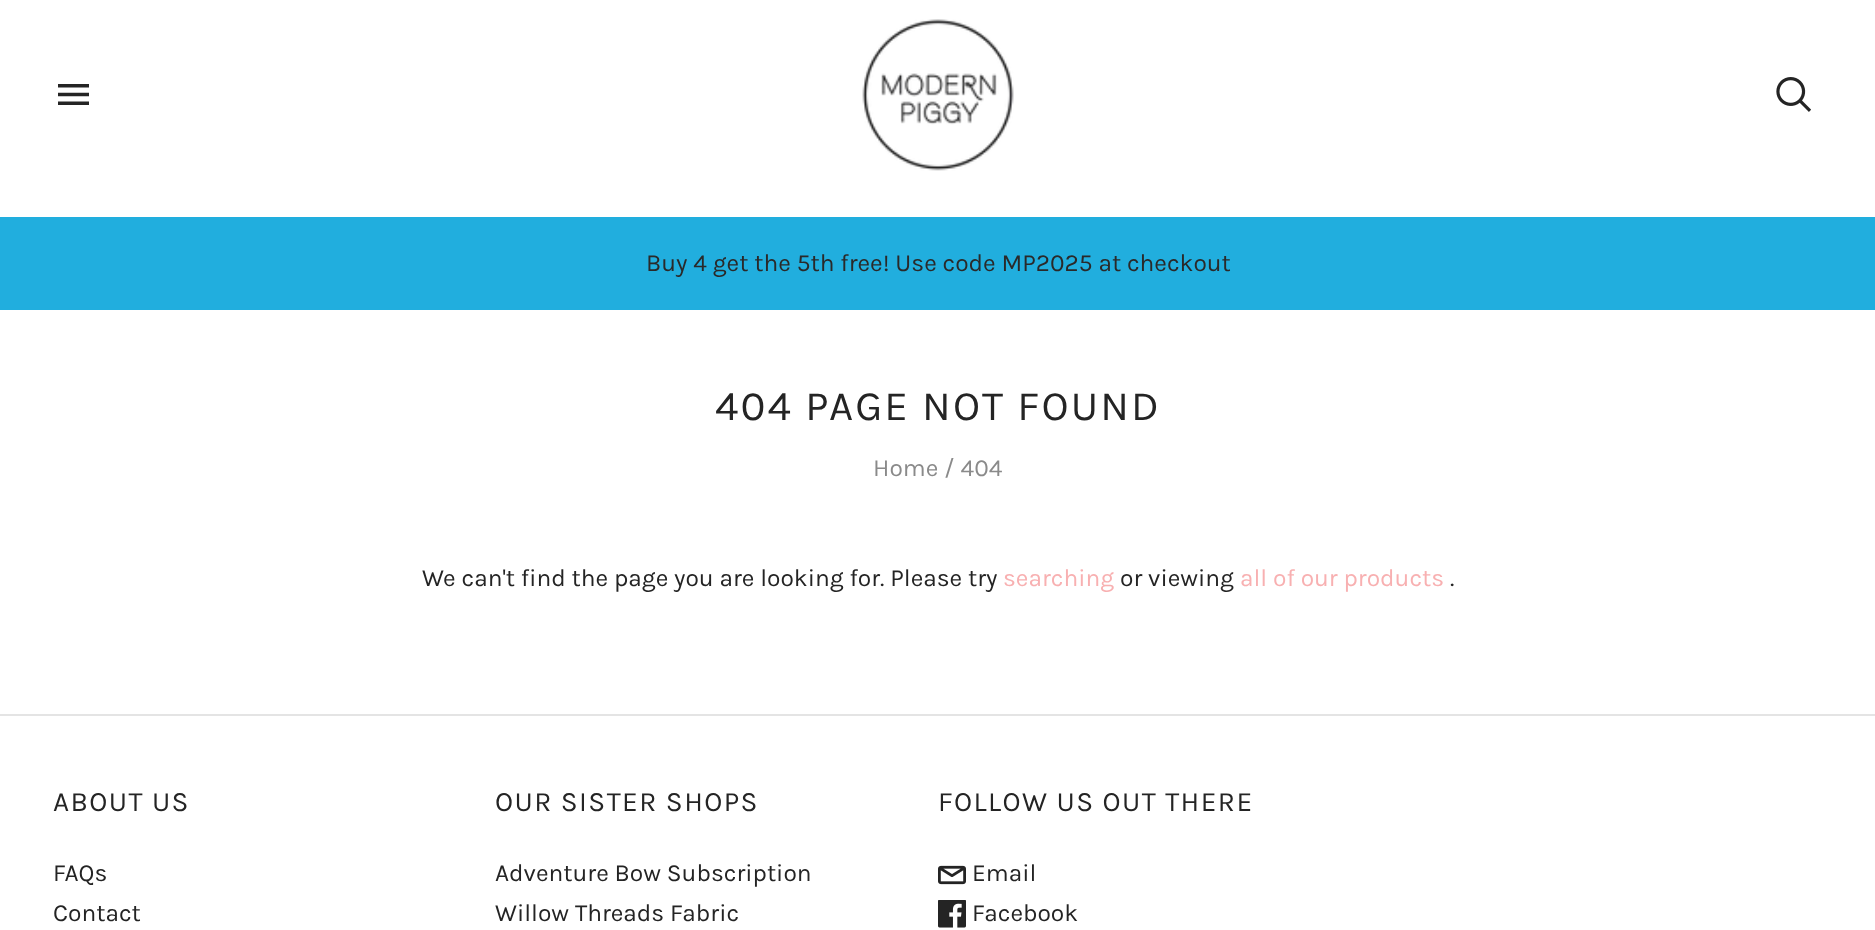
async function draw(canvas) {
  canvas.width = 1875
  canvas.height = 930
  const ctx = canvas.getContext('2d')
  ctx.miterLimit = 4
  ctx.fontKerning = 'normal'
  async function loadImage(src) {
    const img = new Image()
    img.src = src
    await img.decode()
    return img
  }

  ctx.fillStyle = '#fff'
  ctx.fillRect(0, 0, 1875, 930)
  ctx.drawImage(await loadImage('image0.png'), 58, 84, 31, 21)
  ctx.drawImage(await loadImage('image1.png'), 862, 19, 152, 152)
  ctx.drawImage(await loadImage('image2.png'), 1776, 77, 35, 35)
  ctx.fillStyle = '#21aede'
  ctx.fillRect(0, 217, 1875, 93)
  ctx.font = '24.5px Karla'
  ctx.fillStyle = '#2a2929'
  ctx.fillText('Buy 4 get the 5th free! Use code MP2025 at checkout', 646, 271)
  ctx.letterSpacing = '2.1px'
  ctx.font = '42px Karla'
  ctx.fillStyle = '#242424'
  ctx.fillText('404 PAGE NOT FOUND', 715, 420)
  ctx.letterSpacing = '0px'
  ctx.font = '24.5px Karla'
  ctx.fillStyle = '#8a8a8a'
  ctx.fillText('Home / 404', 873, 476)
  ctx.fillStyle = '#242424'
  ctx.fillText('We can\'t find the page you are looking for. Please try', 422, 586)
  ctx.fillStyle = '#f8b0b1'
  ctx.fillText('searching', 1003, 586)
  ctx.fillStyle = '#242424'
  ctx.fillText('or viewing', 1120, 586)
  ctx.fillStyle = '#f8b0b1'
  ctx.fillText('all of our products', 1240, 586)
  ctx.fillStyle = '#242424'
  ctx.fillText('.', 1450, 586)
  ctx.fillStyle = '#e4e4e4'
  ctx.fillRect(0, 714, 1875, 2)
  ctx.letterSpacing = '1.4px'
  ctx.font = '28px Karla'
  ctx.fillStyle = '#242424'
  ctx.fillText('ABOUT US', 53, 811)
  ctx.letterSpacing = '0px'
  ctx.font = '24.5px Karla'
  ctx.fillText('FAQs', 53, 881)
  ctx.fillText('Contact', 53, 921)
  ctx.letterSpacing = '1.4px'
  ctx.font = '28px Karla'
  ctx.fillText('OUR SISTER SHOPS', 495, 811)
  ctx.letterSpacing = '0px'
  ctx.font = '24.5px Karla'
  ctx.fillText('Adventure Bow Subscription', 495, 881)
  ctx.fillText('Willow Threads Fabric', 495, 921)
  ctx.letterSpacing = '1.4px'
  ctx.font = '28px Karla'
  ctx.fillText('FOLLOW US OUT THERE', 938, 811)
  ctx.drawImage(await loadImage('image3.png'), 938, 865, 28, 20)
  ctx.letterSpacing = '0px'
  ctx.font = '24.5px Karla'
  ctx.fillText('Email', 972, 881)
  ctx.drawImage(await loadImage('image4.png'), 938, 900, 28, 28)
  ctx.fillText('Facebook', 972, 921)
}

draw(document.querySelector('canvas'))
